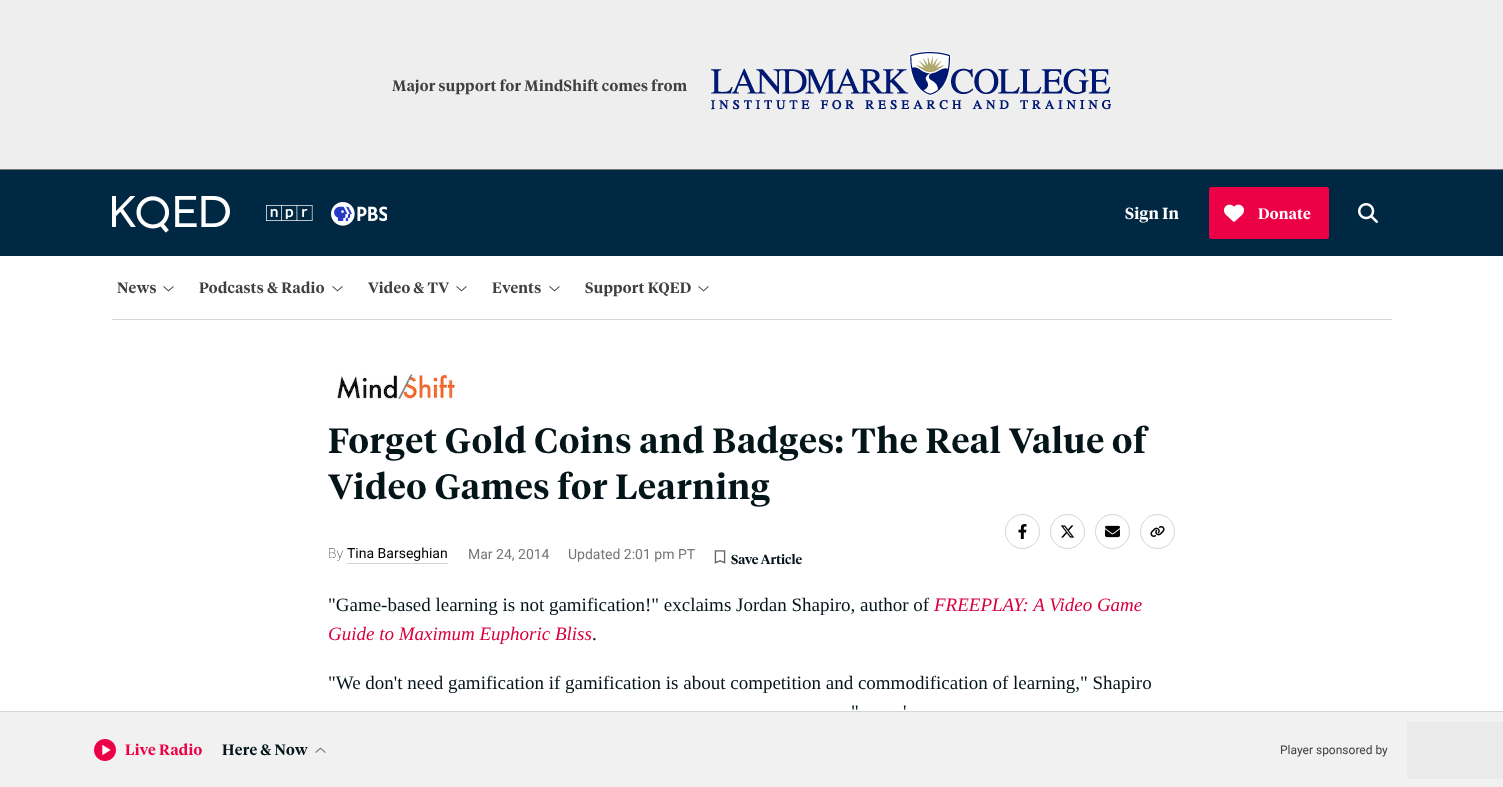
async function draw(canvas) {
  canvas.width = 1503
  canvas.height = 787
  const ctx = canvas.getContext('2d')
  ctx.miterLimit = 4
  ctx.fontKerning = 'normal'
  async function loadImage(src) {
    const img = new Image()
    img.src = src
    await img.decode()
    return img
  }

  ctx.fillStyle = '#fff'
  ctx.fillRect(0, 0, 1503, 787)
  ctx.fillStyle = '#eee'
  ctx.fillRect(0, 0, 1503, 169)
  ctx.fillStyle = '#767676'
  ctx.fillRect(0, 169, 1503, 1)
  ctx.letterSpacing = '0.3px'
  ctx.font = '600 15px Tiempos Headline'
  ctx.fillStyle = '#404040'
  ctx.fillText('Major support for MindShift comes from', 392, 91)
  ctx.drawImage(await loadImage('image0.png'), 711, 51, 400, 59)
  ctx.fillStyle = '#012842'
  ctx.fillRect(0, 170, 1503, 86)
  ctx.drawImage(await loadImage('image1.png'), 112, 196, 118, 37)
  ctx.drawImage(await loadImage('image2.png'), 266, 205, 47, 16)
  ctx.drawImage(await loadImage('image3.png'), 331, 202, 56, 24)
  ctx.letterSpacing = '0.25px'
  ctx.font = '600 16px Tiempos Headline'
  ctx.fillStyle = '#fff'
  ctx.fillText('Sign In', 1125, 219)
  ctx.fillStyle = '#ec0046'
  ctx.beginPath()
  ctx.roundRect(1209.5, 187.5, 119, 51, 1.5)
  ctx.fill()
  ctx.strokeStyle = '#ec0046'
  ctx.stroke()
  ctx.drawImage(await loadImage('image4.png'), 1224, 204, 20, 18)
  ctx.letterSpacing = '0.3px'
  ctx.font = '600 15px Tiempos Headline'
  ctx.fillStyle = '#fff'
  ctx.fillText('Donate', 1258, 219)
  ctx.drawImage(await loadImage('image5.png'), 1358, 203, 20, 20)
  ctx.fillStyle = '#d5d5d5'
  ctx.fillRect(112, 319, 1280, 1)
  ctx.fillStyle = '#404040'
  ctx.fillText('News', 117, 293)
  ctx.drawImage(await loadImage('image6.png'), 163, 286, 11, 6)
  ctx.fillText('Podcasts & Radio', 199, 293)
  ctx.drawImage(await loadImage('image6.png'), 332, 286, 11, 6)
  ctx.fillText('Video & TV', 368, 293)
  ctx.drawImage(await loadImage('image6.png'), 456, 286, 11, 6)
  ctx.fillText('Events', 492, 293)
  ctx.drawImage(await loadImage('image6.png'), 549, 286, 11, 6)
  ctx.fillText('Support KQED', 585, 293)
  ctx.drawImage(await loadImage('image6.png'), 698, 286, 11, 6)
  ctx.drawImage(await loadImage('image7.png'), 337, 374, 118, 25)
  ctx.letterSpacing = '0.8px'
  ctx.font = '600 35px Tiempos Headline'
  ctx.fillStyle = '#04151a'
  ctx.fillText('Forget Gold Coins and Badges: The Real Value of', 328, 453)
  ctx.fillText('Video Games for Learning', 328, 499)
  ctx.beginPath()
  ctx.arc(1022.5, 531.5, 17, 0, 2 * Math.PI)
  ctx.strokeStyle = '#d5d5d5'
  ctx.stroke()
  ctx.drawImage(await loadImage('image8.png'), 1018, 524, 9, 15)
  ctx.beginPath()
  ctx.arc(1067.5, 531.5, 17, 0, 2 * Math.PI)
  ctx.stroke()
  ctx.drawImage(await loadImage('image9.png'), 1060, 525, 15, 13)
  ctx.beginPath()
  ctx.arc(1112.5, 531.5, 17, 0, 2 * Math.PI)
  ctx.stroke()
  ctx.drawImage(await loadImage('image10.png'), 1105, 525, 15, 13)
  ctx.beginPath()
  ctx.arc(1157.5, 531.5, 17, 0, 2 * Math.PI)
  ctx.stroke()
  ctx.drawImage(await loadImage('image11.png'), 1150, 526, 15, 11)
  ctx.letterSpacing = '0px'
  ctx.font = '100 14px Roboto'
  ctx.fillText('By', 328, 558)
  ctx.font = '14px Roboto'
  ctx.fillStyle = '#000'
  ctx.fillText('Tina Barseghian', 347, 558)
  ctx.fillStyle = '#d5d5d5'
  ctx.fillRect(347, 563, 101, 1)
  ctx.fillStyle = '#767676'
  ctx.fillText('Mar 24, 2014', 468, 559)
  ctx.fillText('Updated 2:01 pm PT', 568, 559)
  ctx.drawImage(await loadImage('image12.png'), 714, 550, 12, 14)
  ctx.font = '600 13px Tiempos Headline'
  ctx.fillStyle = '#04151a'
  ctx.fillText('Save Article', 731, 564)
  ctx.font = '19px Liberation Serif'
  ctx.fillText('"Game-based learning is not gamification!" exclaims Jordan Shapiro, author of', 328, 611)
  ctx.font = 'italic 19px Liberation Serif'
  ctx.fillStyle = '#d80040'
  ctx.fillText('FREEPLAY: A Video Game', 934, 611)
  ctx.fillText('Guide to Maximum Euphoric Bliss', 328, 640)
  ctx.font = '19px Liberation Serif'
  ctx.fillStyle = '#04151a'
  ctx.fillText('.', 592, 640)
  ctx.fillText('"We don\'t need gamification if gamification is about competition and commodification of learning," Shapiro', 328, 689)
  ctx.fillText('"', 851, 718)
  ctx.fillText('\'', 903, 718)
  ctx.fillStyle = '#f1f1f1'
  ctx.fillRect(0, 712, 1503, 75)
  ctx.fillStyle = '#d5d5d5'
  ctx.fillRect(0, 711, 1503, 1)
  ctx.drawImage(await loadImage('image13.png'), 94, 739, 22, 22)
  ctx.letterSpacing = '0.3px'
  ctx.font = '600 15px Tiempos Headline'
  ctx.fillStyle = '#ec0046'
  ctx.fillText('Live Radio', 125, 755)
  ctx.fillStyle = '#04151a'
  ctx.fillText('Here & Now', 222, 755)
  ctx.drawImage(await loadImage('image14.png'), 315, 747, 11, 6)
  ctx.letterSpacing = '0px'
  ctx.font = '12px Roboto'
  ctx.fillStyle = '#404040'
  ctx.fillText('Player sponsored by', 1280, 754)
  ctx.fillStyle = '#eaeaea'
  ctx.fillRect(1407, 722, 96, 57)
}

draw(document.querySelector('canvas'))
